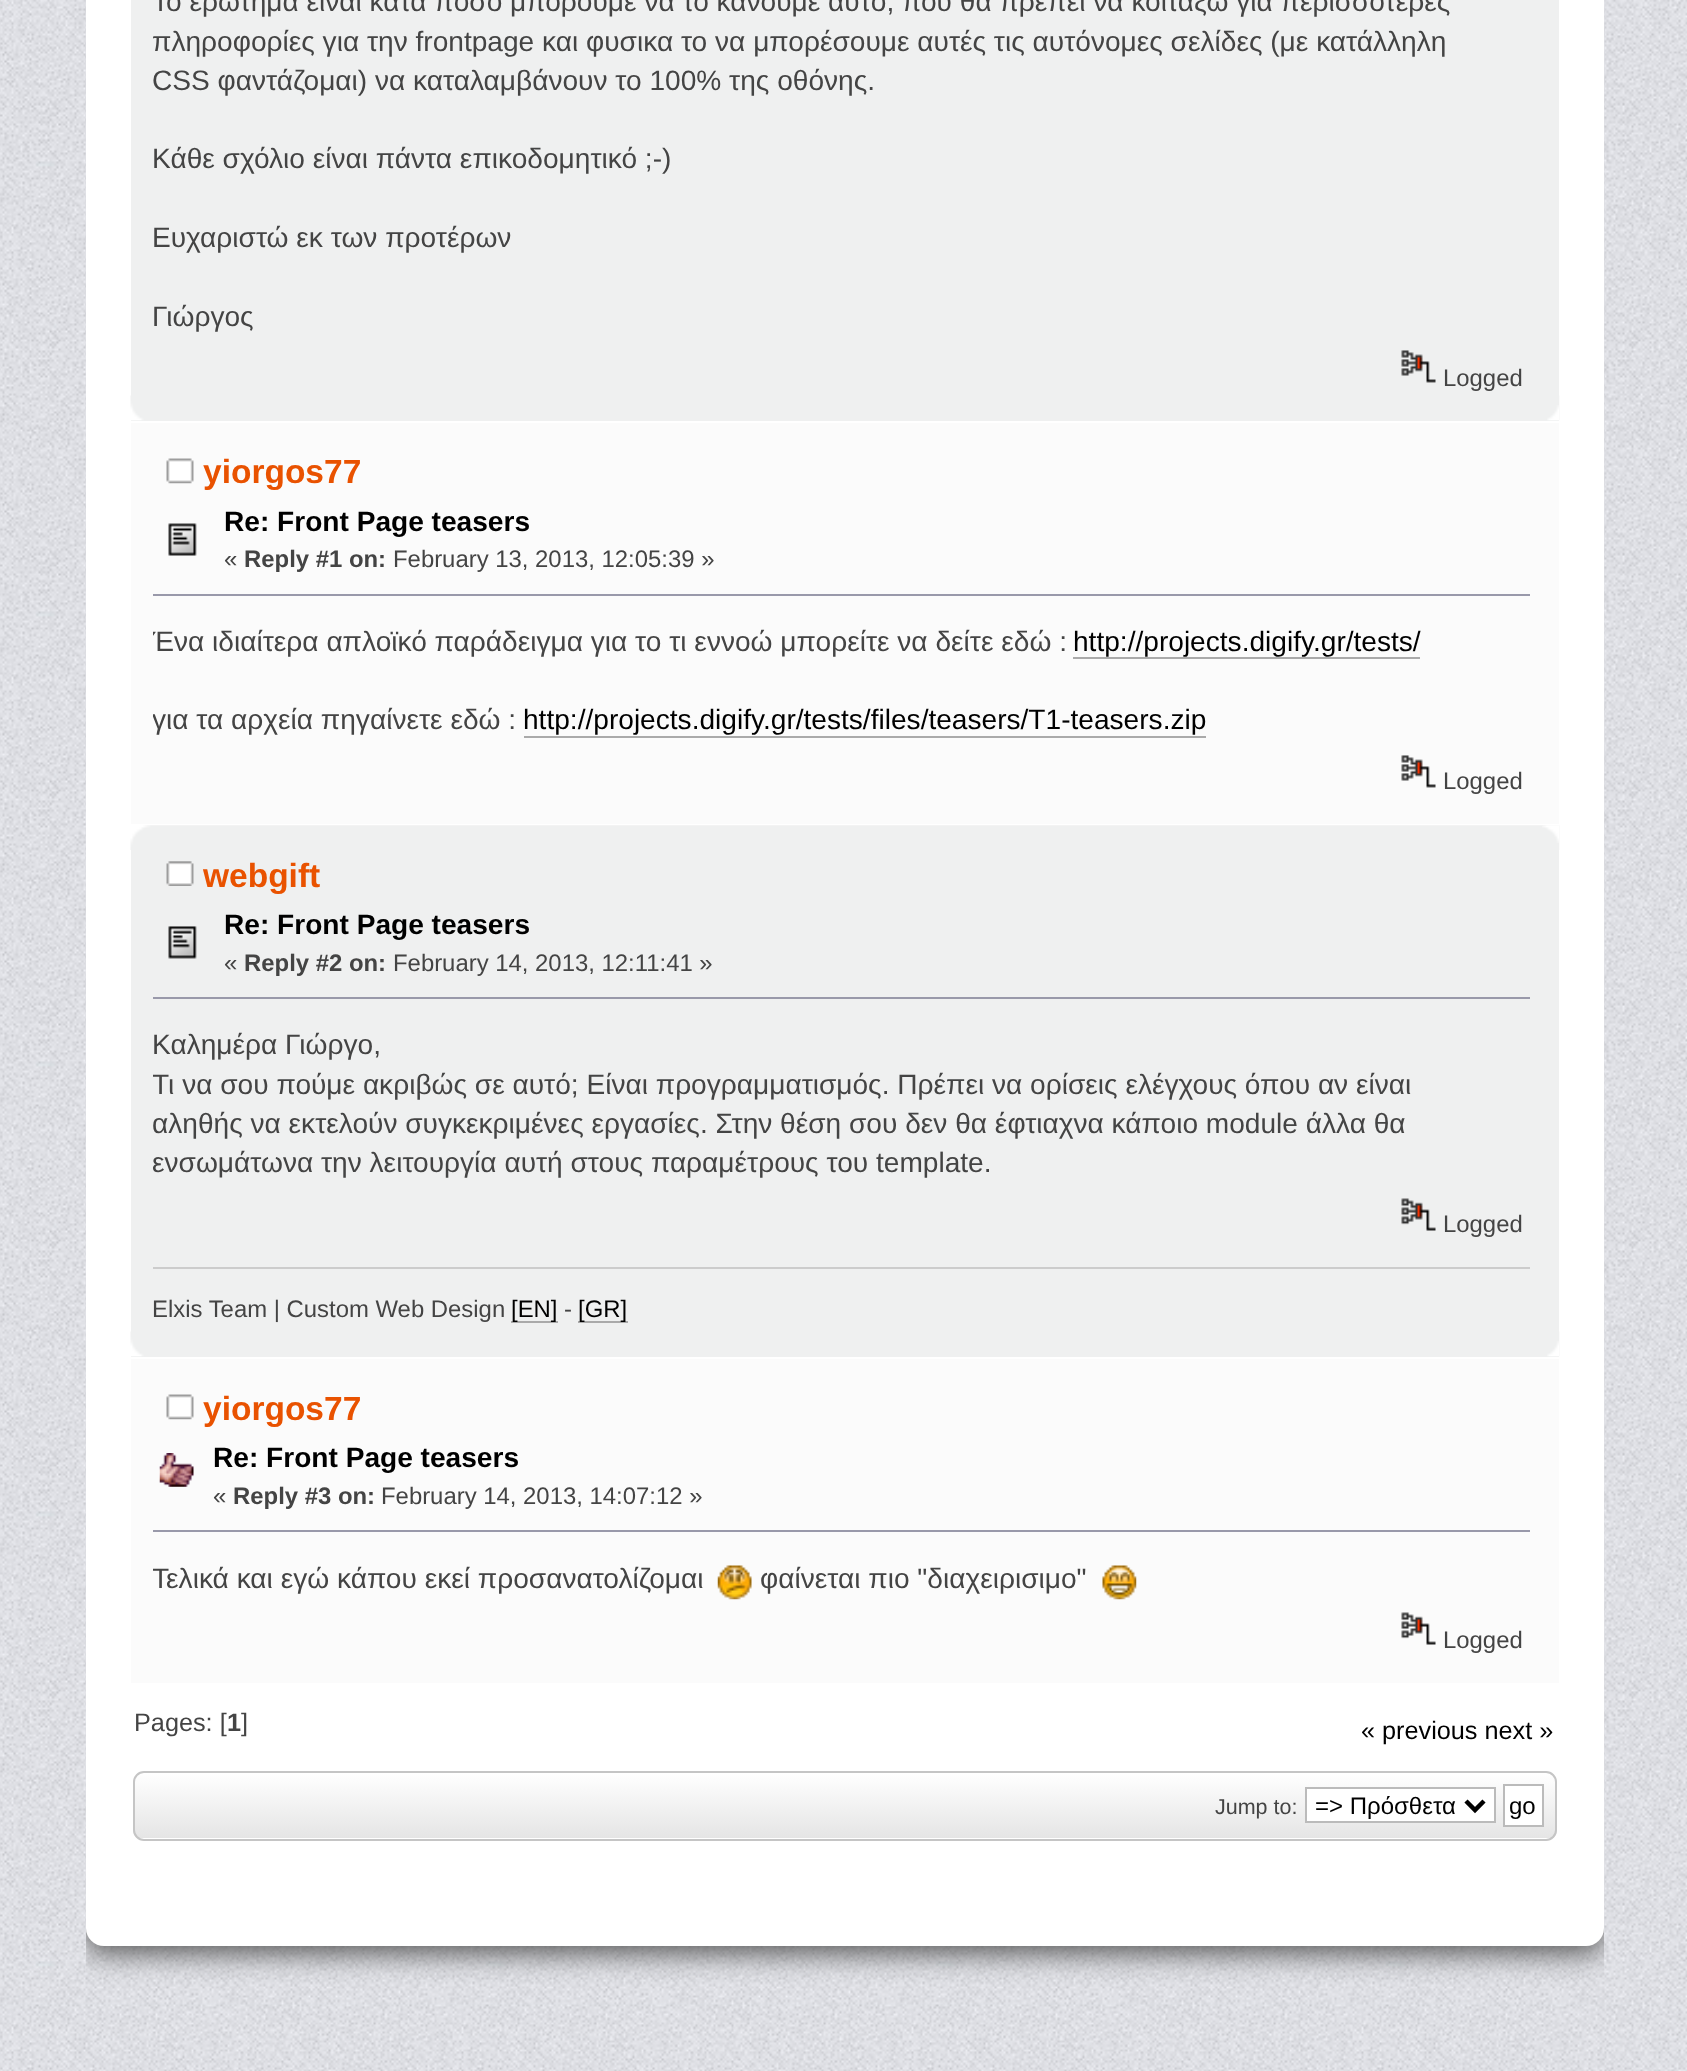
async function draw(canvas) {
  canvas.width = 1687
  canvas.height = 2071
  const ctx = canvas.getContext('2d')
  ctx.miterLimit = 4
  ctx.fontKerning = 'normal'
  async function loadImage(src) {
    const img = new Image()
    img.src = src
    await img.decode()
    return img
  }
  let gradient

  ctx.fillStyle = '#fff'
  ctx.fillRect(0, 0, 1687, 2071)
  ctx.drawImage(await loadImage('image0.png'), 0, 0, 1687, 2071)
  ctx.save()
  ctx.beginPath()
  ctx.rect(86, 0, 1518, 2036)
  ctx.clip()
  ctx.fillStyle = '#555'
  ctx.filter = 'blur(14.5px)'
  ctx.beginPath()
  ctx.roundRect(86, -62, 1518, 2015, 18)
  ctx.fill()
  ctx.filter = 'none'
  ctx.restore()
  ctx.beginPath()
  ctx.roundRect(86, -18, 1518, 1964, 18)
  ctx.fill()
  ctx.fillStyle = '#eff0f0'
  ctx.fillRect(131, 0, 1428, 421)
  ctx.font = '28.1px Liberation Sans'
  ctx.fillStyle = '#444'
  ctx.fillText('Το ερώτημα είναι κατά πόσο μπορούμε να το κάνουμε αυτό, που θα πρέπει να κοιτάξω για περισσότερες', 152, 11)
  ctx.fillText('πληροφορίες για την frontpage και φυσικα το να μπορέσουμε αυτές τις αυτόνομες σελίδες (με κατάλληλη', 152, 51)
  ctx.fillText('CSS φαντάζομαι) να καταλαμβάνουν το 100% της οθόνης.', 152, 90)
  ctx.fillText('Κάθε σχόλιο είναι πάντα επικοδομητικό ;-)', 152, 168)
  ctx.fillText('Ευχαριστώ εκ των προτέρων', 152, 247)
  ctx.fillText('Γιώργος', 152, 326)
  ctx.drawImage(await loadImage('image1.png'), 1401, 350, 35, 33)
  ctx.font = '23.9px Liberation Sans'
  ctx.fillText('Logged', 1443, 386)
  ctx.drawImage(await loadImage('image2.png'), 130, 395, 1430, 26)
  ctx.drawImage(await loadImage('image3.png'), 1547, 405, 12, 16)
  ctx.fillStyle = '#fbfbfb'
  ctx.fillRect(131, 423, 1428, 401)
  ctx.drawImage(await loadImage('image4.png'), 166, 458, 28, 26)
  ctx.font = 'bold 33.5px Liberation Sans'
  ctx.fillStyle = '#e95200'
  ctx.fillText('yiorgos77', 203, 483)
  ctx.drawImage(await loadImage('image5.png'), 168, 523, 29, 33)
  ctx.font = 'bold 28.1px Liberation Sans'
  ctx.fillStyle = '#000'
  ctx.fillText('Re: Front Page teasers', 224, 531)
  ctx.font = '23.9px Liberation Sans'
  ctx.fillStyle = '#444'
  ctx.fillText('«', 224, 567)
  ctx.font = 'bold 23.9px Liberation Sans'
  ctx.fillText('Reply #1 on:', 244, 567)
  ctx.font = '23.9px Liberation Sans'
  ctx.fillText('February 13, 2013, 12:05:39 »', 393, 567)
  ctx.fillStyle = '#99a'
  ctx.fillRect(153, 594, 1377, 2)
  ctx.save()
  ctx.beginPath()
  ctx.rect(153, 592, 1406, 157)
  ctx.clip()
  ctx.font = '28.1px Liberation Sans'
  ctx.fillStyle = '#444'
  ctx.fillText('Ένα ιδιαίτερα απλοϊκό παράδειγμα για το τι εννοώ μπορείτε να δείτε εδώ :', 152, 651)
  ctx.restore()
  ctx.font = '28.1px Liberation Sans'
  ctx.fillStyle = '#000'
  ctx.fillText('http://projects.digify.gr/tests/', 1073, 651)
  ctx.fillStyle = '#aaa'
  ctx.fillRect(1073, 657, 347, 2)
  ctx.save()
  ctx.beginPath()
  ctx.rect(153, 592, 1406, 157)
  ctx.clip()
  ctx.fillStyle = '#444'
  ctx.fillText('για τα αρχεία πηγαίνετε εδώ :', 152, 729)
  ctx.restore()
  ctx.fillStyle = '#000'
  ctx.fillText('http://projects.digify.gr/tests/files/teasers/T1-teasers.zip', 523, 729)
  ctx.fillStyle = '#aaa'
  ctx.fillRect(524, 736, 682, 2)
  ctx.drawImage(await loadImage('image6.png'), 1401, 755, 35, 33)
  ctx.font = '23.9px Liberation Sans'
  ctx.fillStyle = '#444'
  ctx.fillText('Logged', 1443, 789)
  ctx.fillStyle = '#eff0f0'
  ctx.fillRect(131, 850, 1428, 507)
  ctx.drawImage(await loadImage('image7.png'), 130, 825, 1430, 25)
  ctx.drawImage(await loadImage('image8.png'), 1542, 825, 17, 18)
  ctx.drawImage(await loadImage('image9.png'), 166, 861, 28, 25)
  ctx.font = 'bold 33.5px Liberation Sans'
  ctx.fillStyle = '#e95200'
  ctx.fillText('webgift', 203, 887)
  ctx.drawImage(await loadImage('image10.png'), 168, 926, 29, 33)
  ctx.font = 'bold 28.1px Liberation Sans'
  ctx.fillStyle = '#000'
  ctx.fillText('Re: Front Page teasers', 224, 934)
  ctx.font = '23.9px Liberation Sans'
  ctx.fillStyle = '#444'
  ctx.fillText('«', 224, 971)
  ctx.font = 'bold 23.9px Liberation Sans'
  ctx.fillText('Reply #2 on:', 244, 971)
  ctx.font = '23.9px Liberation Sans'
  ctx.fillText('February 14, 2013, 12:11:41 »', 393, 971)
  ctx.fillStyle = '#99a'
  ctx.fillRect(153, 997, 1377, 2)
  ctx.font = '28.1px Liberation Sans'
  ctx.fillStyle = '#444'
  ctx.fillText('Καλημέρα Γιώργο,', 152, 1054)
  ctx.save()
  ctx.beginPath()
  ctx.rect(153, 995, 1406, 198)
  ctx.clip()
  ctx.fillText('Τι να σου πούμε ακριβώς σε αυτό; Είναι προγραμματισμός. Πρέπει να ορίσεις ελέγχους όπου αν είναι', 152, 1094)
  ctx.restore()
  ctx.fillText('αληθής να εκτελούν συγκεκριμένες εργασίες. Στην θέση σου δεν θα έφτιαχνα κάποιο module άλλα θα', 152, 1133)
  ctx.fillText('ενσωμάτωνα την λειτουργία αυτή στους παραμέτρους του template.', 152, 1172)
  ctx.drawImage(await loadImage('image11.png'), 1401, 1198, 35, 33)
  ctx.font = '23.9px Liberation Sans'
  ctx.fillText('Logged', 1443, 1232)
  ctx.fillStyle = '#ccc'
  ctx.fillRect(153, 1267, 1377, 2)
  ctx.fillStyle = '#444'
  ctx.fillText('Elxis Team | Custom Web Design', 152, 1317)
  ctx.fillStyle = '#aaa'
  ctx.fillRect(511, 1321, 47, 2)
  ctx.fillStyle = '#000'
  ctx.fillText('[EN]', 511, 1317)
  ctx.fillStyle = '#444'
  ctx.fillText('-', 564, 1317)
  ctx.fillStyle = '#aaa'
  ctx.fillRect(578, 1321, 50, 2)
  ctx.fillStyle = '#000'
  ctx.fillText('[GR]', 578, 1317)
  ctx.drawImage(await loadImage('image2.png'), 130, 1331, 1430, 26)
  ctx.drawImage(await loadImage('image3.png'), 1547, 1341, 12, 16)
  ctx.fillStyle = '#fbfbfb'
  ctx.fillRect(131, 1359, 1428, 324)
  ctx.drawImage(await loadImage('image4.png'), 166, 1394, 28, 26)
  ctx.font = 'bold 33.5px Liberation Sans'
  ctx.fillStyle = '#e95200'
  ctx.fillText('yiorgos77', 203, 1420)
  ctx.drawImage(await loadImage('image12.png'), 159, 1453, 35, 34)
  ctx.font = 'bold 28.1px Liberation Sans'
  ctx.fillStyle = '#000'
  ctx.fillText('Re: Front Page teasers', 213, 1467)
  ctx.font = '23.9px Liberation Sans'
  ctx.fillStyle = '#444'
  ctx.fillText('«', 213, 1504)
  ctx.font = 'bold 23.9px Liberation Sans'
  ctx.fillText('Reply #3 on:', 233, 1504)
  ctx.font = '23.9px Liberation Sans'
  ctx.fillText('February 14, 2013, 14:07:12 »', 381, 1504)
  ctx.fillStyle = '#99a'
  ctx.fillRect(153, 1530, 1377, 2)
  ctx.save()
  ctx.beginPath()
  ctx.rect(153, 1528, 1406, 79)
  ctx.clip()
  ctx.font = '28.1px Liberation Sans'
  ctx.fillStyle = '#444'
  ctx.fillText('Τελικά και εγώ κάπου εκεί προσανατολίζομαι', 152, 1588)
  ctx.restore()
  ctx.drawImage(await loadImage('image13.png'), 717, 1565, 35, 35)
  ctx.font = '28.1px Liberation Sans'
  ctx.fillStyle = '#444'
  ctx.fillText('φαίνεται πιο "διαχειρισιμο"', 760, 1588)
  ctx.drawImage(await loadImage('image14.png'), 1102, 1565, 35, 35)
  ctx.drawImage(await loadImage('image15.png'), 1401, 1612, 35, 33)
  ctx.font = '23.9px Liberation Sans'
  ctx.fillText('Logged', 1443, 1648)
  ctx.font = '25.25px Liberation Sans'
  ctx.fillText('Pages: [', 134, 1731)
  ctx.font = 'bold 25.25px Liberation Sans'
  ctx.fillText('1', 227, 1731)
  ctx.font = '25.25px Liberation Sans'
  ctx.fillText(']', 241, 1731)
  ctx.fillStyle = '#000'
  ctx.fillText('« previous next »', 1361, 1739)
  ctx.save()
  ctx.beginPath()
  ctx.roundRect(133, 1771, 1424, 70, 11)
  ctx.clip()
  gradient = ctx.createLinearGradient(845, 1773, 845, 1838)
  gradient.addColorStop(0, '#fff')
  gradient.addColorStop(1, '#e5e5e5')
  ctx.fillStyle = gradient
  ctx.fillRect(133, 1773, 1424, 65)
  ctx.restore()
  ctx.beginPath()
  ctx.roundRect(134, 1772, 1422, 68, 10)
  ctx.strokeStyle = '#c5c5c5'
  ctx.lineWidth = 2
  ctx.stroke()
  ctx.font = '21.5px Liberation Sans'
  ctx.fillStyle = '#444'
  ctx.fillText('Jump to:', 1215, 1814)
  ctx.fillStyle = '#fff'
  ctx.beginPath()
  ctx.rect(1306, 1788, 189, 34)
  ctx.fill()
  ctx.strokeStyle = '#bbb'
  ctx.stroke()
  ctx.beginPath()
  ctx.moveTo(1466, 1801)
  ctx.lineTo(1475, 1810)
  ctx.lineTo(1484, 1801)
  ctx.strokeStyle = '#000'
  ctx.lineWidth = 4.5
  ctx.stroke()
  ctx.font = '24px Liberation Sans'
  ctx.fillStyle = '#000'
  ctx.fillText('=> Πρόσθετα', 1315, 1814)
  ctx.fillStyle = '#fff'
  ctx.beginPath()
  ctx.rect(1504, 1785, 39, 41)
  ctx.fill()
  ctx.strokeStyle = '#bbb'
  ctx.lineWidth = 2
  ctx.stroke()
  ctx.fillStyle = '#000'
  ctx.fillText('go', 1509, 1814)
}

draw(document.querySelector('canvas'))
